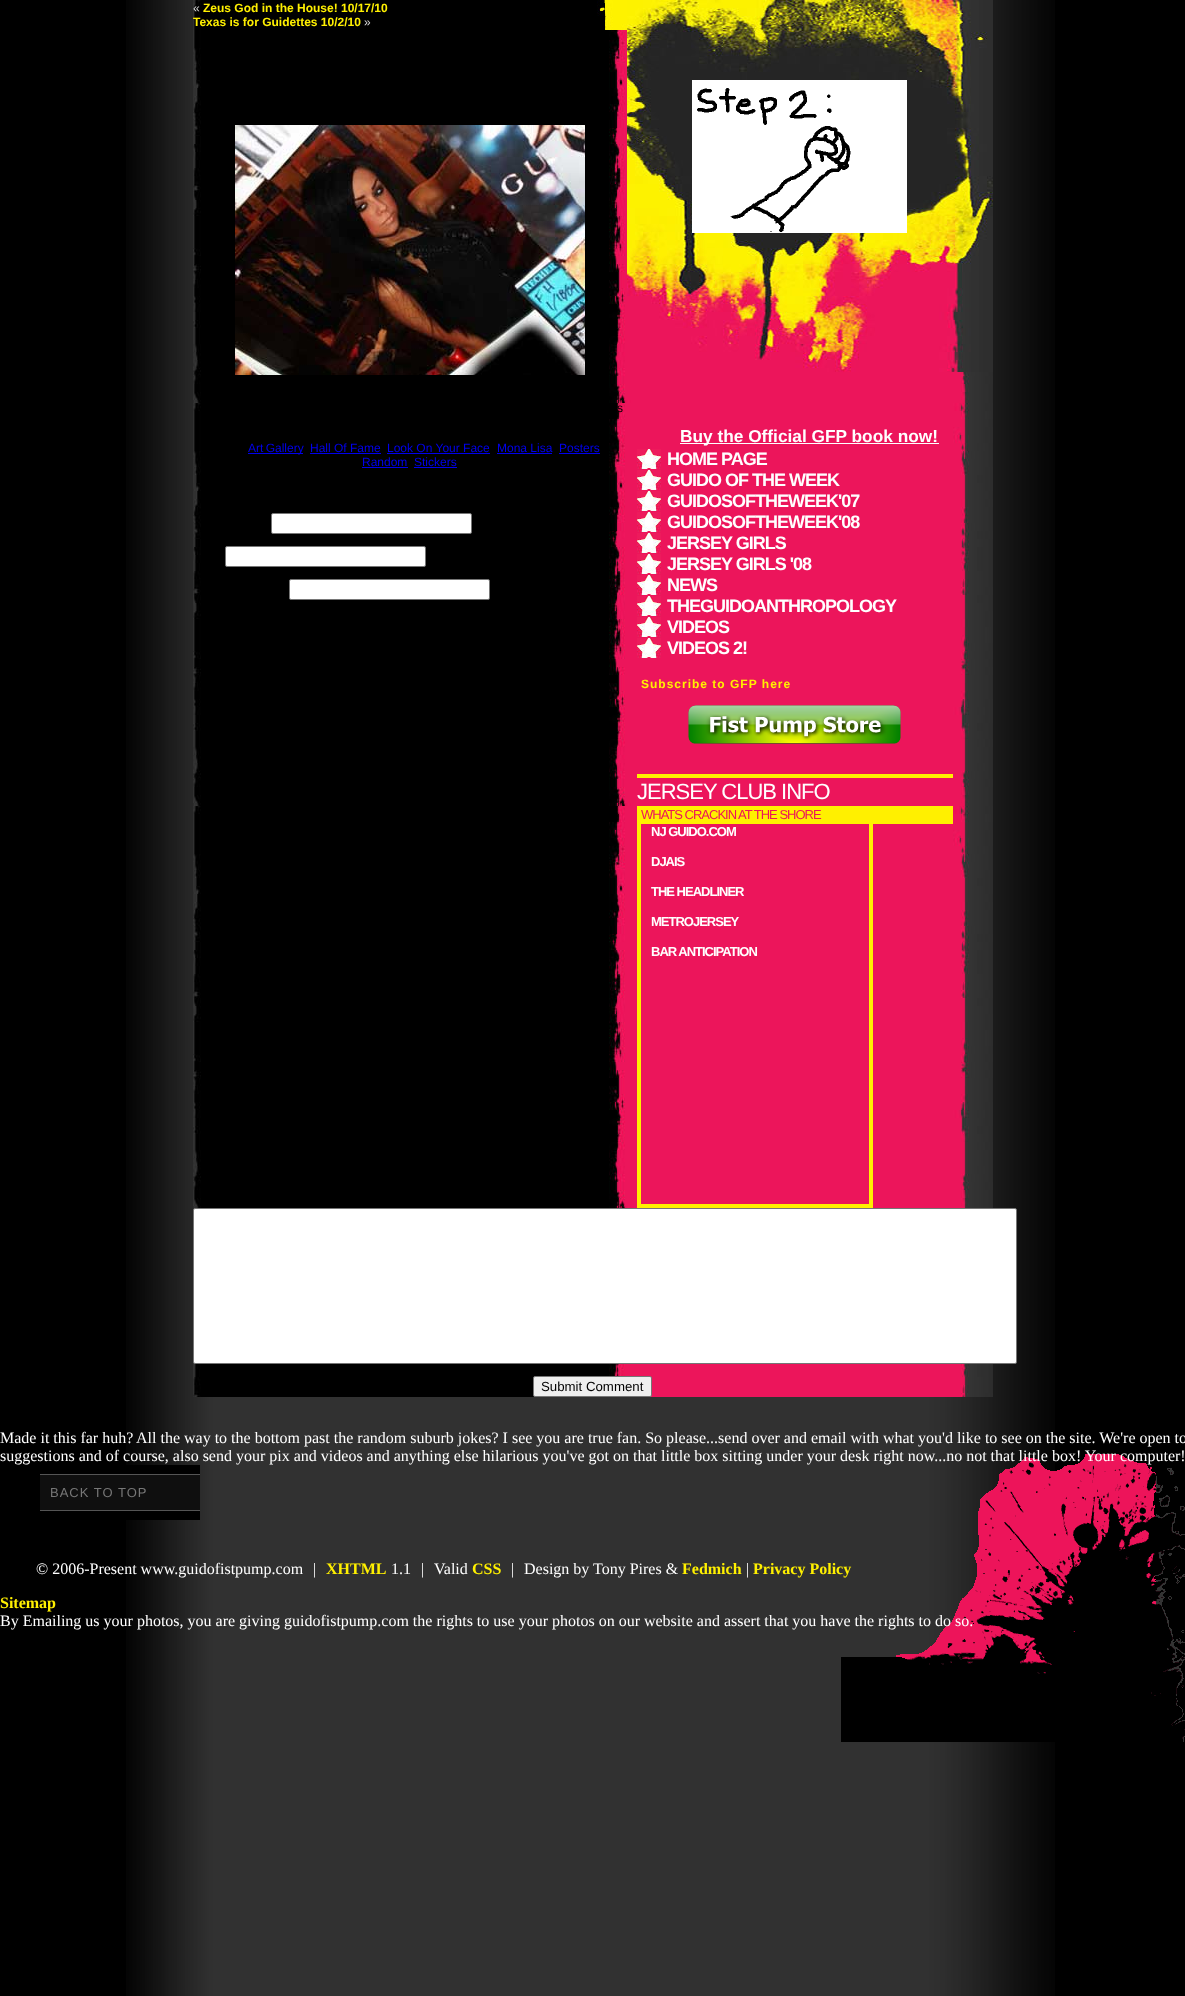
async function draw(canvas) {
  canvas.width = 1185
  canvas.height = 1996
  const ctx = canvas.getContext('2d')
  ctx.miterLimit = 4
  ctx.fontKerning = 'normal'
  async function loadImage(src) {
    const img = new Image()
    img.src = src
    await img.decode()
    return img
  }

  ctx.fillStyle = '#000'
  ctx.fillRect(0, 0, 1185, 1996)
  ctx.drawImage(await loadImage('image0.png'), 126, 0, 929, 1996)
  ctx.drawImage(await loadImage('image1.png'), 193, 0, 800, 1397)
  ctx.drawImage(await loadImage('image2.png'), 597, 0, 30, 30)
  ctx.font = '12px Liberation Sans'
  ctx.fillStyle = '#ddd'
  ctx.fillText('«', 193, 12)
  ctx.font = 'bold 12px Liberation Sans'
  ctx.fillStyle = '#fff000'
  ctx.fillText('Zeus God in the House! 10/17/10', 203, 12)
  ctx.fillText('Texas is for Guidettes 10/2/10', 193, 26)
  ctx.font = '12px Liberation Sans'
  ctx.fillStyle = '#ddd'
  ctx.fillText('»', 364, 26)
  ctx.drawImage(await loadImage('image3.png'), 235, 125, 350, 250)
  ctx.fillStyle = '#000'
  ctx.fillText('s', 617, 412)
  ctx.fillStyle = '#00e'
  ctx.fillRect(248, 453, 55, 1)
  ctx.wordSpacing = '-1px'
  ctx.fillText('Art Gallery', 248, 452)
  ctx.wordSpacing = '0px'
  ctx.fillText('Hall Of Fame', 310, 452)
  ctx.fillRect(310, 453, 71, 1)
  ctx.fillText('Look On Your Face', 387, 452)
  ctx.fillRect(387, 453, 103, 1)
  ctx.fillText('Mona Lisa', 497, 452)
  ctx.fillRect(497, 453, 55, 1)
  ctx.fillText('Posters', 559, 452)
  ctx.fillRect(559, 453, 41, 1)
  ctx.fillText('Random', 362, 466)
  ctx.fillRect(362, 467, 46, 1)
  ctx.fillText('Stickers', 414, 466)
  ctx.fillRect(414, 467, 43, 1)
  ctx.drawImage(await loadImage('image4.png'), 627, 0, 366, 372)
  ctx.drawImage(await loadImage('image5.png'), 692, 80, 215, 153)
  ctx.fillStyle = '#fff'
  ctx.fillRect(680, 443, 259, 1)
  ctx.font = 'bold 17.3px Liberation Sans'
  ctx.fillText('Buy the Official GFP book now!', 680, 442)
  ctx.drawImage(await loadImage('image6.png'), 637, 449, 24, 20)
  ctx.letterSpacing = '-1px'
  ctx.font = 'bold 18px Liberation Sans'
  ctx.fillText('HOME PAGE', 667, 465)
  ctx.drawImage(await loadImage('image6.png'), 637, 470, 24, 20)
  ctx.fillText('GUIDO OF THE WEEK', 667, 486)
  ctx.drawImage(await loadImage('image6.png'), 637, 491, 24, 20)
  ctx.fillText('GUIDOSOFTHEWEEK\'07', 667, 507)
  ctx.drawImage(await loadImage('image6.png'), 637, 512, 24, 20)
  ctx.fillText('GUIDOSOFTHEWEEK\'08', 667, 528)
  ctx.drawImage(await loadImage('image6.png'), 637, 533, 24, 20)
  ctx.fillText('JERSEY GIRLS', 667, 549)
  ctx.drawImage(await loadImage('image6.png'), 637, 554, 24, 20)
  ctx.fillText('JERSEY GIRLS \'08', 667, 570)
  ctx.drawImage(await loadImage('image6.png'), 637, 575, 24, 20)
  ctx.fillText('NEWS', 667, 591)
  ctx.drawImage(await loadImage('image6.png'), 637, 596, 24, 20)
  ctx.fillText('THEGUIDOANTHROPOLOGY', 667, 612)
  ctx.drawImage(await loadImage('image6.png'), 637, 617, 24, 20)
  ctx.fillText('VIDEOS', 667, 633)
  ctx.drawImage(await loadImage('image6.png'), 637, 638, 24, 20)
  ctx.fillText('VIDEOS 2!', 667, 654)
  ctx.letterSpacing = '1px'
  ctx.font = 'bold 12px Liberation Sans'
  ctx.fillStyle = '#fff000'
  ctx.fillText('Subscribe to GFP here', 641, 688)
  ctx.drawImage(await loadImage('image7.png'), 688, 705, 213, 39)
  ctx.fillRect(637, 774, 316, 4)
  ctx.letterSpacing = '-1px'
  ctx.font = '22px Liberation Sans'
  ctx.fillStyle = '#fff'
  ctx.fillText('JERSEY CLUB INFO', 637, 799)
  ctx.fillStyle = '#fff000'
  ctx.fillRect(637, 806, 316, 18)
  ctx.font = '13px Liberation Sans'
  ctx.fillStyle = '#ed145a'
  ctx.fillText('WHATS CRACKIN AT THE SHORE', 641, 819)
  ctx.fillStyle = '#fff000'
  ctx.fillRect(869, 824, 4, 384)
  ctx.fillRect(637, 1204, 236, 4)
  ctx.fillRect(637, 824, 4, 384)
  ctx.font = 'bold 13px Liberation Sans'
  ctx.fillStyle = '#fff'
  ctx.fillText('NJ GUIDO.COM', 651, 836)
  ctx.fillText('DJAIS', 651, 866)
  ctx.fillText('THE HEADLINER', 651, 896)
  ctx.fillText('METROJERSEY', 651, 926)
  ctx.fillText('BAR ANTICIPATION', 651, 956)
  ctx.beginPath()
  ctx.roundRect(271.5, 513.5, 200, 20, 1.5)
  ctx.fill()
  ctx.strokeStyle = '#767676'
  ctx.stroke()
  ctx.beginPath()
  ctx.roundRect(225.5, 546.5, 200, 20, 1.5)
  ctx.fill()
  ctx.stroke()
  ctx.beginPath()
  ctx.roundRect(289.5, 579.5, 200, 20, 1.5)
  ctx.fill()
  ctx.stroke()
  ctx.beginPath()
  ctx.roundRect(193.5, 1208.5, 823, 155, 1.5)
  ctx.fill()
  ctx.stroke()
  ctx.fillStyle = '#efefef'
  ctx.beginPath()
  ctx.roundRect(533.5, 1376.5, 118, 20, 1.5)
  ctx.fill()
  ctx.stroke()
  ctx.letterSpacing = '0px'
  ctx.font = '13.25px Liberation Sans'
  ctx.fillStyle = '#000'
  ctx.fillText('Submit Comment', 541, 1391)
  ctx.drawImage(await loadImage('image8.png'), 841, 1454, 344, 288)
  ctx.font = '16px Liberation Serif'
  ctx.fillStyle = '#fff'
  ctx.fillText('Made it this far huh?', 0, 1443)
  ctx.fillText('All the way to the bottom past the random suburb jokes? I see you are true fan. So please...send over and email with what you\'d like to see on the site. We\'re open to', 136, 1443)
  ctx.fillText('suggestions and of course, also send your pix and videos and anything else hilarious you\'ve got on that little box sitting under your desk right now...no not that little box! Your computer!', 0, 1461)
  ctx.fillStyle = '#000'
  ctx.fillRect(126, 1465, 74, 55)
  ctx.fillStyle = '#0f0f0f'
  ctx.fillRect(40, 1475, 160, 35)
  ctx.fillStyle = '#555'
  ctx.fillRect(40, 1474, 160, 1)
  ctx.fillRect(40, 1510, 160, 1)
  ctx.letterSpacing = '1px'
  ctx.font = '13px Liberation Sans'
  ctx.fillStyle = '#777'
  ctx.fillText('BACK TO TOP', 50, 1497)
  ctx.letterSpacing = '0px'
  ctx.font = '16px Liberation Serif'
  ctx.fillStyle = '#fff'
  ctx.fillText('© 2006-Present www.guidofistpump.com', 36, 1574)
  ctx.fillText('|', 313, 1574)
  ctx.font = 'bold 16px Liberation Serif'
  ctx.fillStyle = '#fff000'
  ctx.fillText('XHTML', 326, 1574)
  ctx.font = '16px Liberation Serif'
  ctx.fillStyle = '#fff'
  ctx.fillText('1.1', 391, 1574)
  ctx.fillText('|', 421, 1574)
  ctx.fillText('Valid', 434, 1574)
  ctx.font = 'bold 16px Liberation Serif'
  ctx.fillStyle = '#fff000'
  ctx.fillText('CSS', 472, 1574)
  ctx.font = '16px Liberation Serif'
  ctx.fillStyle = '#fff'
  ctx.fillText('|', 511, 1574)
  ctx.fillText('Design by Tony Pires &', 524, 1574)
  ctx.font = 'bold 16px Liberation Serif'
  ctx.fillStyle = '#fff000'
  ctx.fillText('Fedmich', 682, 1574)
  ctx.font = '16px Liberation Serif'
  ctx.fillStyle = '#fff'
  ctx.fillText('|', 746, 1574)
  ctx.font = 'bold 16px Liberation Serif'
  ctx.fillStyle = '#fff000'
  ctx.fillText('Privacy Policy', 753, 1574)
  ctx.fillText('Sitemap', 0, 1608)
  ctx.font = '16px Liberation Serif'
  ctx.fillStyle = '#fff'
  ctx.fillText('By Emailing us your photos, you are giving guidofistpump.com the rights to use your photos on our website and assert that you have the rights to do so.', 0, 1626)
}

draw(document.querySelector('canvas'))
